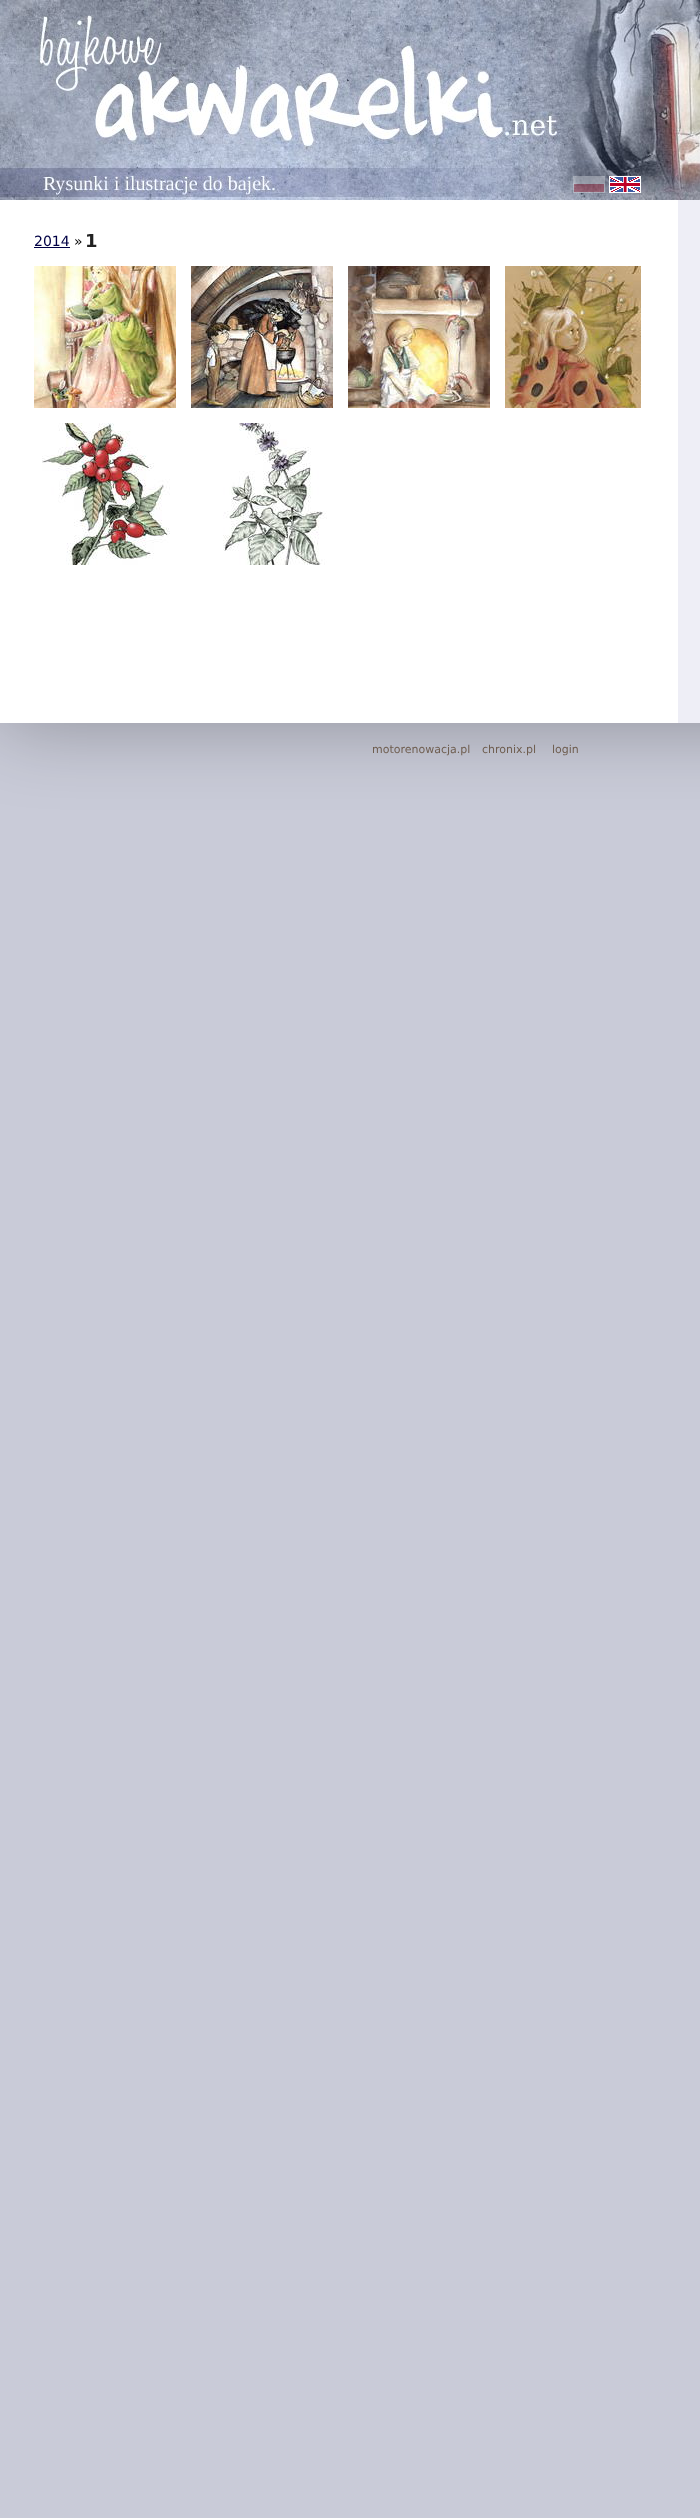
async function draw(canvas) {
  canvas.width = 700
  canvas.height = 2518
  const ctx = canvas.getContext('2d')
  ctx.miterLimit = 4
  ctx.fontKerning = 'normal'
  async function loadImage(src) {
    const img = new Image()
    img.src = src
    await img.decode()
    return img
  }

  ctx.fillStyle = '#c9cbd8'
  ctx.fillRect(0, 0, 700, 2518)
  ctx.fillStyle = '#0000004d'
  ctx.filter = 'blur(40px)'
  ctx.beginPath()
  ctx.rect(0, 0, 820, 723)
  ctx.fill()
  ctx.filter = 'none'
  ctx.fillStyle = '#fff'
  ctx.fillRect(0, 200, 678, 523)
  ctx.fillStyle = '#eeeef6'
  ctx.fillRect(678, 200, 22, 523)
  ctx.drawImage(await loadImage('image0.png'), 0, 0, 700, 200)
  ctx.strokeStyle = '#ffffff4d'
  ctx.strokeRect(573.5, 176.5, 31, 16)
  ctx.strokeStyle = '#fff'
  ctx.strokeRect(609.5, 176.5, 31, 16)
  ctx.drawImage(await loadImage('image1.png'), 574, 177, 30, 15)
  ctx.drawImage(await loadImage('image2.png'), 610, 177, 30, 15)
  ctx.font = '14px DejaVu Sans'
  ctx.fillStyle = '#004'
  ctx.fillText('2014', 34, 246)
  ctx.fillRect(34, 247, 36, 1)
  ctx.fillStyle = '#000'
  ctx.fillText('»', 74, 246)
  ctx.font = 'bold 18px DejaVu Sans'
  ctx.fillStyle = '#222'
  ctx.fillText('1', 85, 247)
  ctx.drawImage(await loadImage('image3.png'), 34, 266, 142, 142)
  ctx.drawImage(await loadImage('image4.png'), 191, 266, 142, 142)
  ctx.drawImage(await loadImage('image5.png'), 348, 266, 142, 142)
  ctx.drawImage(await loadImage('image6.png'), 505, 266, 136, 142)
  ctx.drawImage(await loadImage('image7.png'), 42, 423, 128, 142)
  ctx.drawImage(await loadImage('image8.png'), 223, 423, 104, 142)
  ctx.font = '11px DejaVu Sans'
  ctx.fillStyle = '#6f5e50'
  ctx.fillText('motorenowacja.pl', 372, 753)
  ctx.fillText('chronix.pl', 482, 753)
  ctx.fillText('login', 552, 753)
}

draw(document.querySelector('canvas'))
